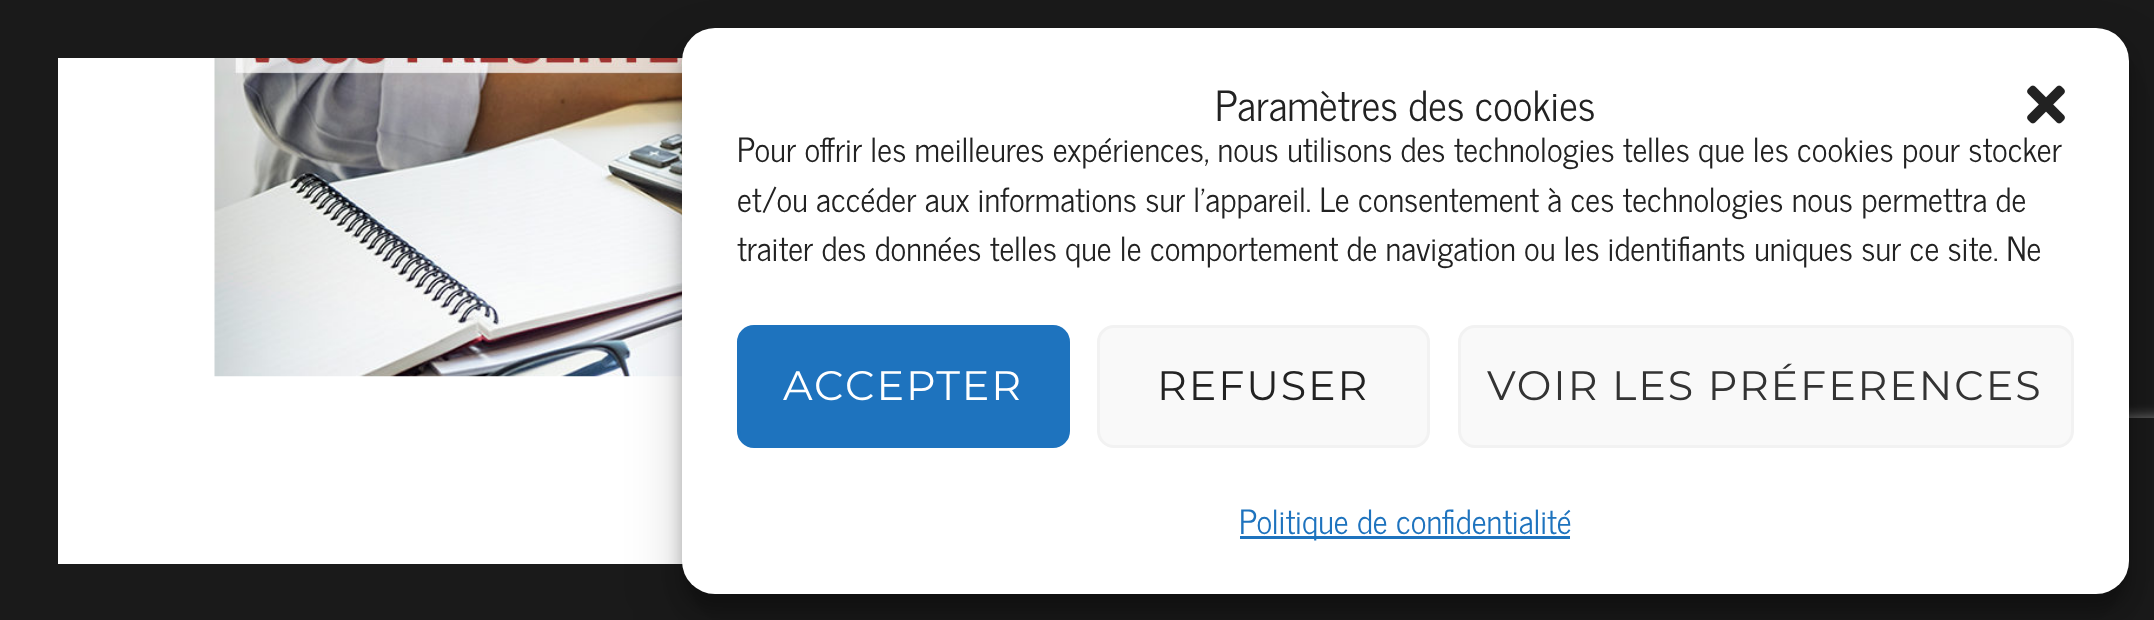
async function draw(canvas) {
  canvas.width = 2154
  canvas.height = 620
  const ctx = canvas.getContext('2d')
  ctx.miterLimit = 4
  ctx.fontKerning = 'normal'
  async function loadImage(src) {
    const img = new Image()
    img.src = src
    await img.decode()
    return img
  }

  ctx.fillStyle = '#1a1a1a'
  ctx.fillRect(0, 0, 2154, 620)
  ctx.fillStyle = '#fff'
  ctx.fillRect(58, 58, 625, 506)
  ctx.drawImage(await loadImage('image0.png'), 214, 58, 469, 319)
  ctx.save()
  ctx.beginPath()
  ctx.rect(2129, 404, 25, 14)
  ctx.clip()
  ctx.fillStyle = '#808080'
  ctx.filter = 'blur(7px)'
  ctx.beginPath()
  ctx.roundRect(1964, 418, 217, 165, 6)
  ctx.fill()
  ctx.filter = 'none'
  ctx.restore()
  ctx.fillStyle = '#1a1a1a'
  ctx.fillRect(1950, 564, 204, 33)
  ctx.fillStyle = '#0000003b'
  ctx.filter = 'blur(8px)'
  ctx.beginPath()
  ctx.roundRect(682, 44, 1447, 567, 33)
  ctx.fill()
  ctx.filter = 'none'
  ctx.fillStyle = '#00000030'
  ctx.filter = 'blur(27.5px)'
  ctx.beginPath()
  ctx.roundRect(682, 55, 1447, 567, 33)
  ctx.fill()
  ctx.filter = 'none'
  ctx.fillStyle = '#fff'
  ctx.beginPath()
  ctx.roundRect(682, 28, 1447, 566, 33)
  ctx.fill()
  ctx.font = '41.25px News Cycle'
  ctx.fillStyle = '#222'
  ctx.fillText('Paramètres des cookies', 1215, 121)
  ctx.drawImage(await loadImage('image1.png'), 2027, 85, 38, 39)
  ctx.font = '33px News Cycle'
  ctx.fillText('Pour offrir les meilleures expériences, nous utilisons des technologies telles que les cookies pour stocker', 737, 162)
  ctx.fillText('et/ou accéder aux informations sur l\'appareil. Le consentement à ces technologies nous permettra de', 737, 212)
  ctx.fillText('traiter des données telles que le comportement de navigation ou les identifiants uniques sur ce site. Ne', 737, 261)
  ctx.fillStyle = '#1e73be'
  ctx.beginPath()
  ctx.roundRect(738.5, 326.5, 330, 120, 15.5)
  ctx.fill()
  ctx.strokeStyle = '#1e73be'
  ctx.lineWidth = 3
  ctx.stroke()
  ctx.letterSpacing = '1.9px'
  ctx.font = '100 41.25px Montserrat'
  ctx.fillStyle = '#fff'
  ctx.fillText('ACCEPTER', 783, 400)
  ctx.fillStyle = '#f9f9f9'
  ctx.beginPath()
  ctx.roundRect(1098.5, 326.5, 330, 120, 15.5)
  ctx.fill()
  ctx.strokeStyle = '#f2f2f2'
  ctx.stroke()
  ctx.fillStyle = '#222'
  ctx.fillText('REFUSER', 1157, 400)
  ctx.fillStyle = '#f9f9f9'
  ctx.beginPath()
  ctx.roundRect(1459.5, 326.5, 613, 120, 15.5)
  ctx.fill()
  ctx.stroke()
  ctx.fillStyle = '#333'
  ctx.fillText('VOIR LES PRÉFERENCES', 1487, 400)
  ctx.fillStyle = '#1e73be'
  ctx.fillRect(1240, 536, 330, 3)
  ctx.letterSpacing = '0px'
  ctx.font = '33px News Cycle'
  ctx.fillText('Politique de confidentialité', 1239, 534)
}

draw(document.querySelector('canvas'))
